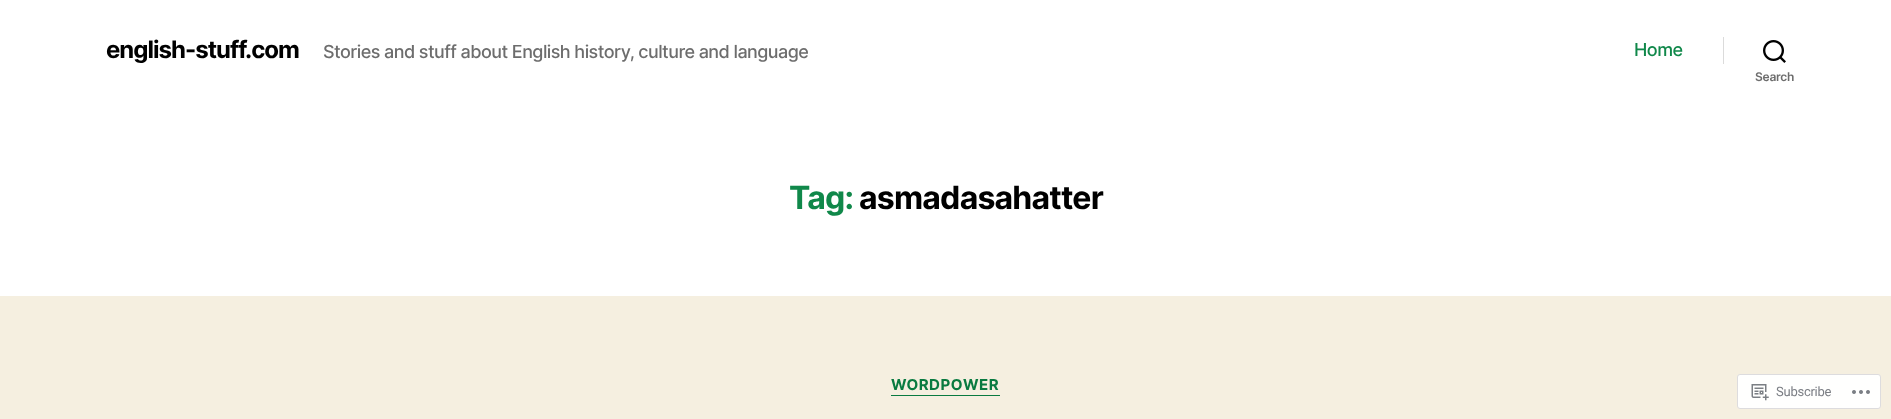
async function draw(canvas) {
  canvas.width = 1891
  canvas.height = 419
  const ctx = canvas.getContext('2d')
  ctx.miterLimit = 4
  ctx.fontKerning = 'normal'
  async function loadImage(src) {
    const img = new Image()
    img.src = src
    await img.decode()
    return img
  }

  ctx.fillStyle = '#f5efe0'
  ctx.fillRect(0, 0, 1891, 419)
  ctx.fillStyle = '#fff'
  ctx.fillRect(0, 0, 1891, 296)
  ctx.letterSpacing = '-1px'
  ctx.font = 'bold 24px Inter'
  ctx.fillStyle = '#000'
  ctx.fillText('english-stuff.com', 106, 58)
  ctx.letterSpacing = '-0.55px'
  ctx.font = '500 18px Inter'
  ctx.fillStyle = '#6d6d6d'
  ctx.fillText('Stories and stuff about English history, culture and language', 323, 58)
  ctx.letterSpacing = '-0.5px'
  ctx.fillStyle = '#10884a'
  ctx.fillText('Home', 1634, 56)
  ctx.fillStyle = '#dbdbdb'
  ctx.fillRect(1723, 37, 1, 27)
  ctx.drawImage(await loadImage('image0.png'), 1763, 40, 23, 23)
  ctx.letterSpacing = '-0.25px'
  ctx.font = '600 12px Inter'
  ctx.fillStyle = '#6d6d6d'
  ctx.fillText('Search', 1755, 81)
  ctx.letterSpacing = '-0.8px'
  ctx.font = 'bold 32px Inter'
  ctx.fillStyle = '#10884a'
  ctx.fillText('Tag:', 789, 209)
  ctx.fillStyle = '#000'
  ctx.fillText('asmadasahatter', 859, 209)
  ctx.fillStyle = '#097a40'
  ctx.fillRect(891, 395, 109, 1)
  ctx.letterSpacing = '0.5px'
  ctx.font = 'bold 15px Inter'
  ctx.fillText('WORDPOWER', 891, 390)
  ctx.fillStyle = '#fffffe'
  ctx.beginPath()
  ctx.roundRect(1737.5, 374.5, 143, 34, 2.5)
  ctx.fill()
  ctx.strokeStyle = '#dddcde'
  ctx.stroke()
  ctx.drawImage(await loadImage('image1.png'), 1751, 384, 18, 17)
  ctx.letterSpacing = '-0.25px'
  ctx.font = '13px Roboto'
  ctx.fillStyle = '#7b7e84'
  ctx.fillText('Subscribe', 1776, 396)
  ctx.drawImage(await loadImage('image2.png'), 1852, 390, 18, 4)
}

draw(document.querySelector('canvas'))
